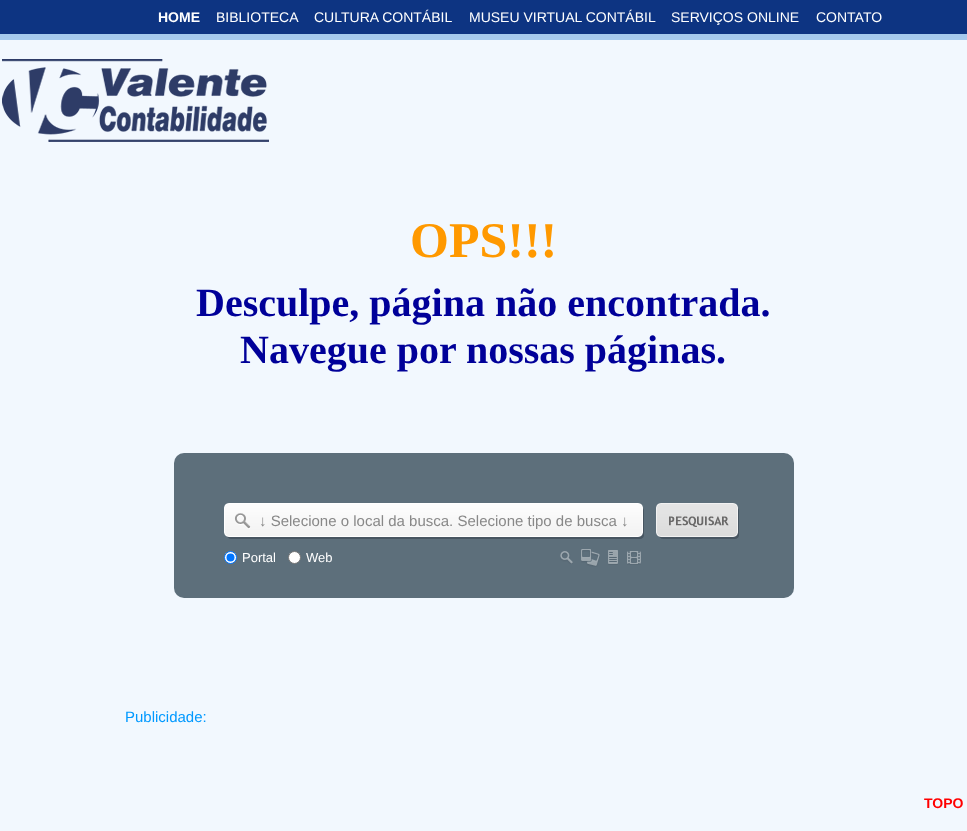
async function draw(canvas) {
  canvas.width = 967
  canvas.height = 831
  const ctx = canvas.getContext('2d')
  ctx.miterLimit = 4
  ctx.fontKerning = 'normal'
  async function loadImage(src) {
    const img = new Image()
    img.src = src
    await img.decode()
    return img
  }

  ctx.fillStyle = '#f2f8fe'
  ctx.fillRect(0, 0, 967, 831)
  ctx.drawImage(await loadImage('image0.png'), 0, 0, 967, 40)
  ctx.font = 'bold 14px Liberation Sans'
  ctx.fillStyle = '#fff'
  ctx.fillText('HOME', 158, 22)
  ctx.font = '14px Liberation Sans'
  ctx.fillText('BIBLIOTECA', 216, 22)
  ctx.fillText('CULTURA CONTÁBIL', 314, 22)
  ctx.fillText('MUSEU VIRTUAL CONTÁBIL', 469, 22)
  ctx.fillText('SERVIÇOS ONLINE', 671, 22)
  ctx.fillText('CONTATO', 816, 22)
  ctx.drawImage(await loadImage('image1.png'), 2, 59, 267, 83)
  ctx.font = 'bold 50px Liberation Serif'
  ctx.fillStyle = '#f90'
  ctx.fillText('OPS!!!', 410, 257)
  ctx.font = 'bold 40px Liberation Serif'
  ctx.fillStyle = '#009'
  ctx.fillText('Desculpe, página não encontrada.', 196, 316)
  ctx.fillText('Navegue por nossas páginas.', 240, 363)
  ctx.fillStyle = '#5d6f7b'
  ctx.beginPath()
  ctx.roundRect(174, 453, 620, 145, 10)
  ctx.fill()
  ctx.drawImage(await loadImage('image2.png'), 224, 503, 420, 36)
  ctx.font = '15px Liberation Sans'
  ctx.fillStyle = '#888'
  ctx.fillText('↓ Selecione o local da busca. Selecione tipo de busca ↓', 259, 526)
  ctx.drawImage(await loadImage('image3.png'), 656, 503, 83, 36)
  ctx.fillStyle = '#fff'
  ctx.beginPath()
  ctx.arc(230.5, 557.5, 6, 0, 2 * Math.PI)
  ctx.fill()
  ctx.strokeStyle = '#0075ff'
  ctx.stroke()
  ctx.fillStyle = '#0075ff'
  ctx.beginPath()
  ctx.arc(230.5, 557.5, 4, 0, 2 * Math.PI)
  ctx.fill()
  ctx.font = '13px Liberation Sans'
  ctx.fillStyle = '#fff'
  ctx.fillText('Portal', 242, 562)
  ctx.beginPath()
  ctx.arc(294.5, 557.5, 6, 0, 2 * Math.PI)
  ctx.fill()
  ctx.strokeStyle = '#767676'
  ctx.stroke()
  ctx.fillText('Web', 306, 562)
  ctx.drawImage(await loadImage('image4.png'), 560, 551, 13, 13)
  ctx.drawImage(await loadImage('image5.png'), 581, 549, 19, 18)
  ctx.drawImage(await loadImage('image6.png'), 608, 550, 10, 15)
  ctx.drawImage(await loadImage('image7.png'), 627, 551, 14, 14)
  ctx.font = '15px Liberation Sans'
  ctx.fillStyle = '#09f'
  ctx.fillText('Publicidade:', 125, 722)
  ctx.font = 'bold 14px Liberation Sans'
  ctx.fillStyle = '#f00'
  ctx.fillText('TOPO', 924, 808)
}

draw(document.querySelector('canvas'))
